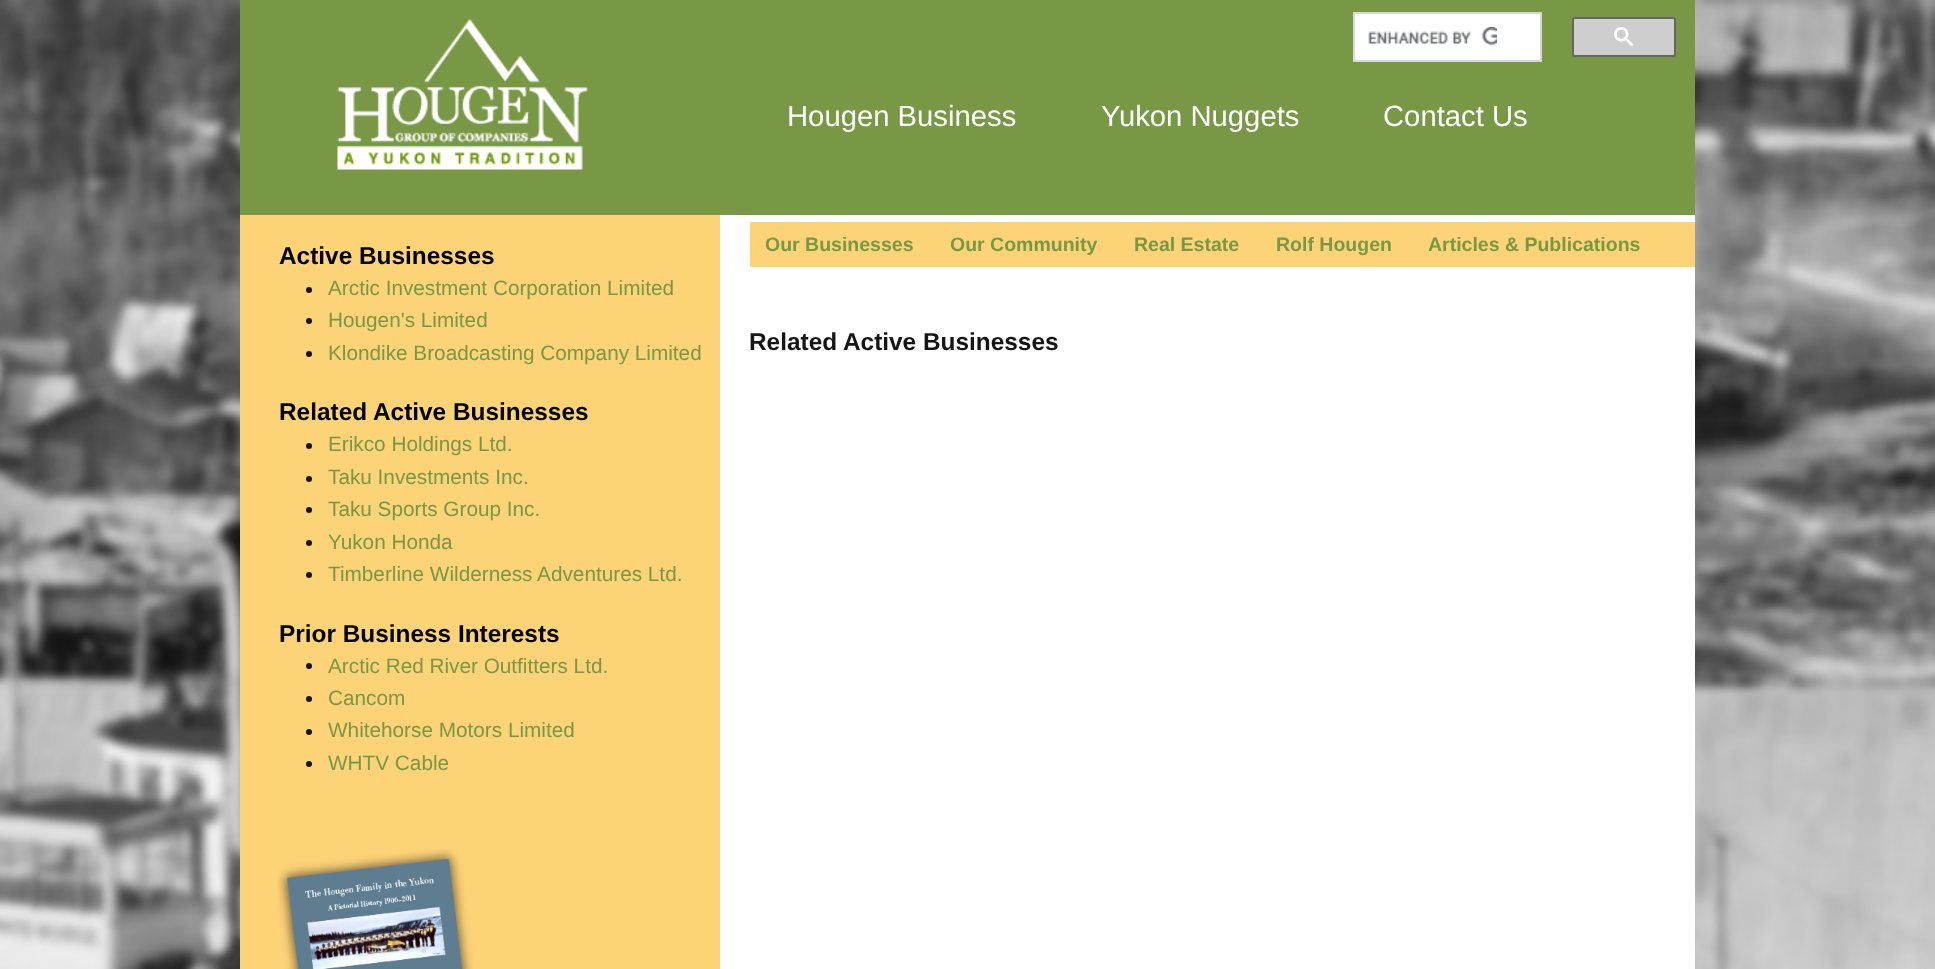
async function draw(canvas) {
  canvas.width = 1935
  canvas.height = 969
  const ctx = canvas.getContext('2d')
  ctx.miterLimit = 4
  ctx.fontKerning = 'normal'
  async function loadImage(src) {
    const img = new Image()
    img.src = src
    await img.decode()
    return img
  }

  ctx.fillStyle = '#fff'
  ctx.fillRect(0, 0, 1935, 969)
  ctx.drawImage(await loadImage('image0.png'), 0, 0, 1935, 969)
  ctx.fillRect(720, 215, 975, 754)
  ctx.fillStyle = '#fdd377'
  ctx.fillRect(240, 215, 480, 754)
  ctx.fillStyle = '#789846'
  ctx.fillRect(240, 0, 1455, 215)
  ctx.drawImage(await loadImage('image1.png'), 337, 19, 251, 151)
  ctx.fillStyle = '#fff'
  ctx.beginPath()
  ctx.rect(1354, 13, 187, 48)
  ctx.fill()
  ctx.strokeStyle = '#d9d9d9'
  ctx.lineWidth = 2
  ctx.stroke()
  ctx.drawImage(await loadImage('image2.png'), 1368, 27, 129, 19)
  ctx.fillStyle = '#cecece'
  ctx.beginPath()
  ctx.roundRect(1573, 18, 102, 38, 2)
  ctx.fill()
  ctx.strokeStyle = '#666'
  ctx.stroke()
  ctx.drawImage(await loadImage('image3.png'), 1614, 27, 20, 20)
  ctx.font = '29.25px Liberation Sans'
  ctx.fillStyle = '#fff'
  ctx.fillText('Hougen Business', 787, 126)
  ctx.fillText('Yukon Nuggets', 1101, 126)
  ctx.fillText('Contact Us', 1383, 126)
  ctx.font = 'bold 24.4px Liberation Sans'
  ctx.fillStyle = '#000'
  ctx.fillText('Active Businesses', 279, 264)
  ctx.fillStyle = '#151515'
  ctx.beginPath()
  ctx.arc(309, 290, 3, 0, 2 * Math.PI)
  ctx.fill()
  ctx.font = '20.75px Liberation Sans'
  ctx.fillStyle = '#789846'
  ctx.fillText('Arctic Investment Corporation Limited', 328, 295)
  ctx.fillStyle = '#151515'
  ctx.beginPath()
  ctx.arc(309, 321, 3, 0, 2 * Math.PI)
  ctx.fill()
  ctx.fillStyle = '#789846'
  ctx.fillText('Hougen\'s Limited', 328, 327)
  ctx.fillStyle = '#151515'
  ctx.beginPath()
  ctx.arc(309, 354, 3, 0, 2 * Math.PI)
  ctx.fill()
  ctx.fillStyle = '#789846'
  ctx.fillText('Klondike Broadcasting Company Limited', 328, 360)
  ctx.font = 'bold 24.4px Liberation Sans'
  ctx.fillStyle = '#000'
  ctx.fillText('Related Active Businesses', 279, 420)
  ctx.fillStyle = '#151515'
  ctx.beginPath()
  ctx.arc(309, 446, 3, 0, 2 * Math.PI)
  ctx.fill()
  ctx.font = '20.75px Liberation Sans'
  ctx.fillStyle = '#789846'
  ctx.fillText('Erikco Holdings Ltd.', 328, 451)
  ctx.fillStyle = '#151515'
  ctx.beginPath()
  ctx.arc(309, 479, 3, 0, 2 * Math.PI)
  ctx.fill()
  ctx.fillStyle = '#789846'
  ctx.fillText('Taku Investments Inc.', 328, 484)
  ctx.fillStyle = '#151515'
  ctx.beginPath()
  ctx.arc(309, 510, 3, 0, 2 * Math.PI)
  ctx.fill()
  ctx.fillStyle = '#789846'
  ctx.fillText('Taku Sports Group Inc.', 328, 516)
  ctx.fillStyle = '#151515'
  ctx.beginPath()
  ctx.arc(309, 543, 3, 0, 2 * Math.PI)
  ctx.fill()
  ctx.fillStyle = '#789846'
  ctx.fillText('Yukon Honda', 328, 549)
  ctx.fillStyle = '#151515'
  ctx.beginPath()
  ctx.arc(309, 575, 3, 0, 2 * Math.PI)
  ctx.fill()
  ctx.fillStyle = '#789846'
  ctx.fillText('Timberline Wilderness Adventures Ltd.', 328, 581)
  ctx.font = 'bold 24.4px Liberation Sans'
  ctx.fillStyle = '#000'
  ctx.fillText('Prior Business Interests', 279, 642)
  ctx.fillStyle = '#151515'
  ctx.beginPath()
  ctx.arc(309, 666, 3, 0, 2 * Math.PI)
  ctx.fill()
  ctx.font = '20.75px Liberation Sans'
  ctx.fillStyle = '#789846'
  ctx.fillText('Arctic Red River Outfitters Ltd.', 328, 673)
  ctx.fillStyle = '#151515'
  ctx.beginPath()
  ctx.arc(309, 699, 3, 0, 2 * Math.PI)
  ctx.fill()
  ctx.fillStyle = '#789846'
  ctx.fillText('Cancom', 328, 705)
  ctx.fillStyle = '#151515'
  ctx.beginPath()
  ctx.arc(309, 732, 3, 0, 2 * Math.PI)
  ctx.fill()
  ctx.fillStyle = '#789846'
  ctx.fillText('Whitehorse Motors Limited', 328, 737)
  ctx.fillStyle = '#151515'
  ctx.beginPath()
  ctx.arc(309, 764, 3, 0, 2 * Math.PI)
  ctx.fill()
  ctx.fillStyle = '#789846'
  ctx.fillText('WHTV Cable', 328, 770)
  ctx.fillStyle = '#fdd377'
  ctx.fillRect(750, 222, 945, 45)
  ctx.font = 'bold 19.5px Liberation Sans'
  ctx.fillStyle = '#789846'
  ctx.fillText('Our Businesses', 765, 251)
  ctx.fillText('Our Community', 950, 251)
  ctx.fillText('Real Estate', 1134, 251)
  ctx.fillText('Rolf Hougen', 1276, 251)
  ctx.fillText('Articles & Publications', 1428, 251)
  ctx.font = 'bold 24.4px Liberation Sans'
  ctx.fillStyle = '#151515'
  ctx.fillText('Related Active Businesses', 749, 350)
  ctx.drawImage(await loadImage('image4.png'), 277, 849, 196, 120)
}

draw(document.querySelector('canvas'))
